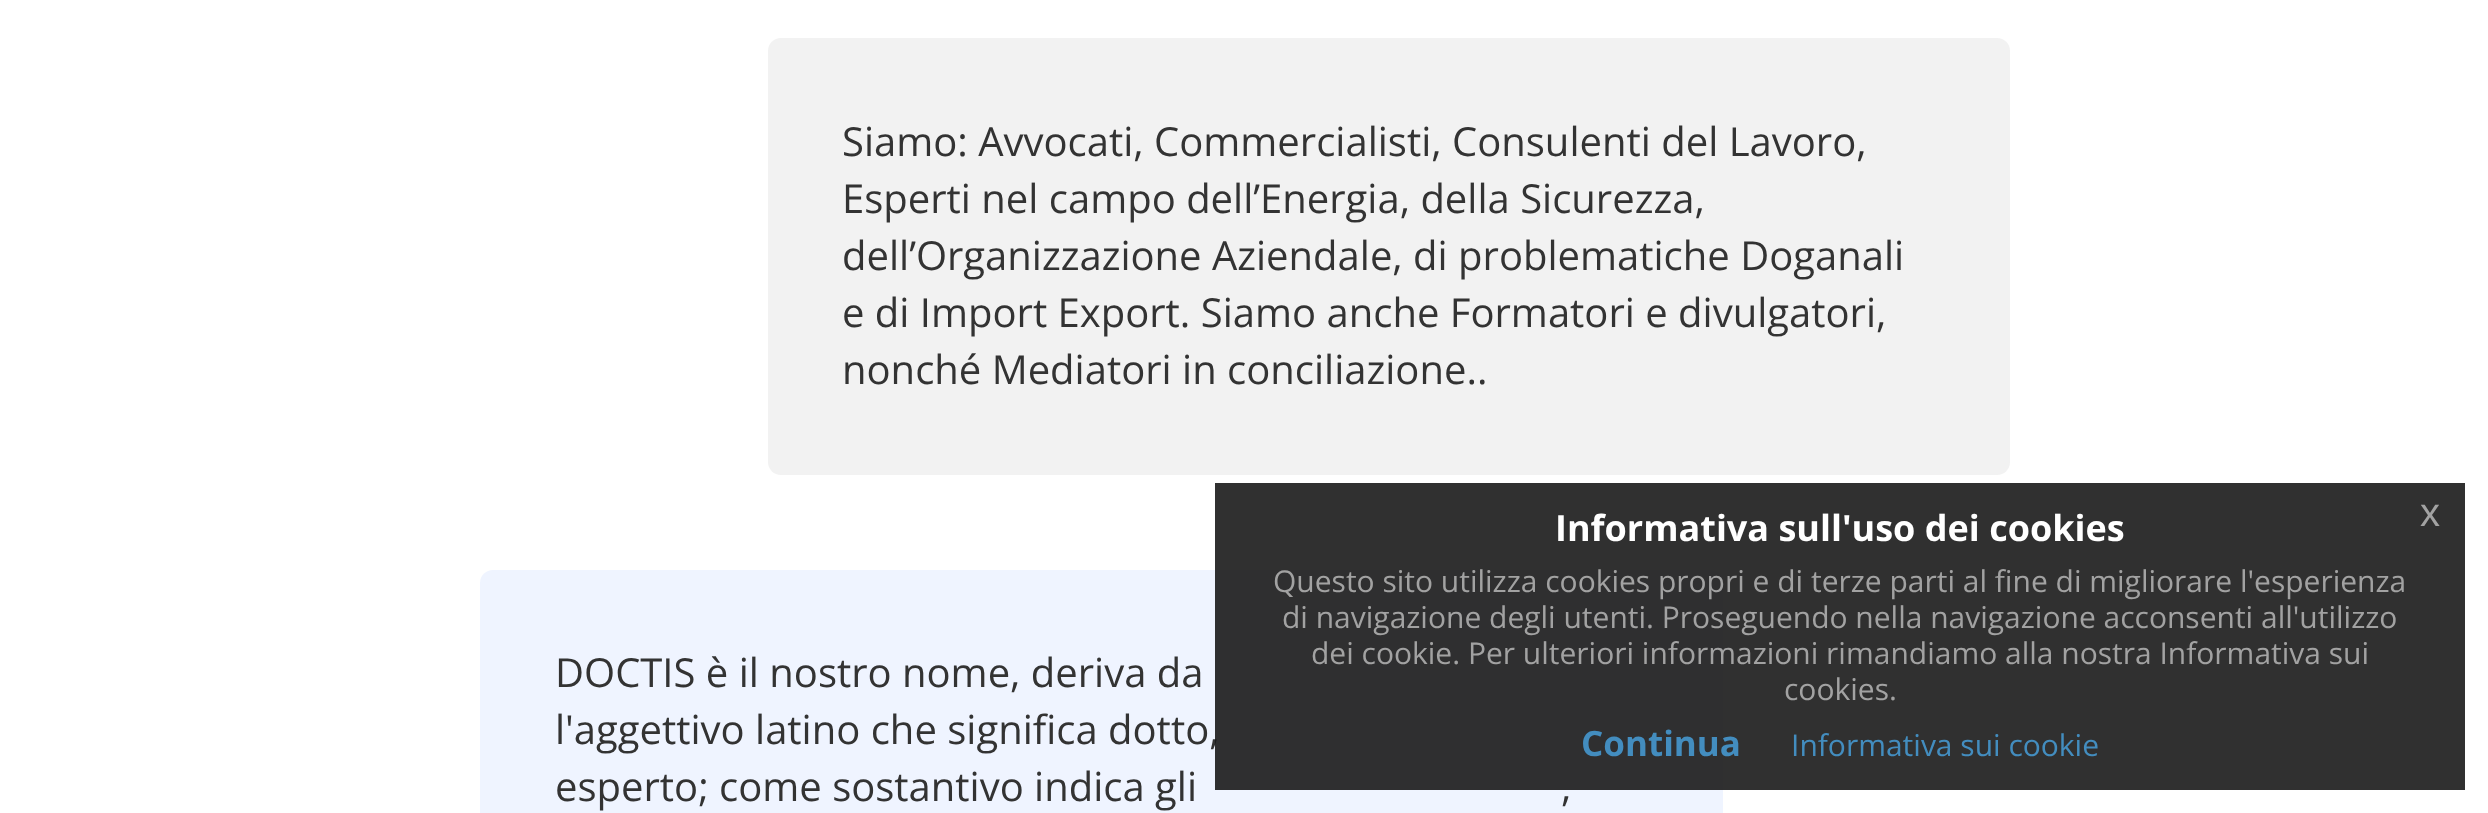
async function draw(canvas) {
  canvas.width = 2488
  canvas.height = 813
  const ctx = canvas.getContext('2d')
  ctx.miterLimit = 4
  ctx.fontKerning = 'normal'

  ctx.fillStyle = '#fff'
  ctx.fillRect(0, 0, 2488, 813)
  ctx.fillStyle = '#f2f2f2'
  ctx.beginPath()
  ctx.roundRect(768, 38, 1242, 437, 13)
  ctx.fill()
  ctx.font = '40px Open Sans'
  ctx.fillStyle = '#333'
  ctx.fillText('Siamo: Avvocati, Commercialisti, Consulenti del Lavoro,', 842, 156)
  ctx.fillText('Esperti nel campo dell’Energia, della Sicurezza,', 842, 213)
  ctx.fillText('dell’Organizzazione Aziendale, di problematiche Doganali', 842, 270)
  ctx.fillText('e di Import Export. Siamo anche Formatori e divulgatori,', 842, 327)
  ctx.fillText('nonché Mediatori in conciliazione..', 842, 384)
  ctx.fillStyle = '#eff4ff'
  ctx.beginPath()
  ctx.roundRect(480, 570, 1243, 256, 13)
  ctx.fill()
  ctx.fillStyle = '#333'
  ctx.fillText('DOCTIS è il nostro nome, deriva da', 555, 687)
  ctx.fillText('l\'aggettivo latino che significa dotto,', 555, 744)
  ctx.fillText('esperto; come sostantivo indica gli', 555, 801)
  ctx.fillText(',', 1561, 801)
  ctx.fillStyle = '#191919e6'
  ctx.fillRect(1215, 483, 1250, 307)
  ctx.font = 'bold 36px Open Sans'
  ctx.fillStyle = '#fff'
  ctx.fillText('Informativa sull\'uso dei cookies', 1555, 541)
  ctx.font = '40px Liberation Sans'
  ctx.fillStyle = '#a2a2a2'
  ctx.fillText('x', 2420, 526)
  ctx.font = '30px Open Sans'
  ctx.fillText('Questo sito utilizza cookies propri e di terze parti al fine di migliorare l\'esperienza', 1273, 592)
  ctx.fillText('di navigazione degli utenti. Proseguendo nella navigazione acconsenti all\'utilizzo', 1282, 628)
  ctx.fillText('dei cookie. Per ulteriori informazioni rimandiamo alla nostra Informativa sui', 1311, 664)
  ctx.fillText('cookies.', 1784, 700)
  ctx.font = 'bold 35px Open Sans'
  ctx.fillStyle = '#438dbf'
  ctx.fillText('Continua', 1581, 756)
  ctx.font = '30px Open Sans'
  ctx.fillText('Informativa sui cookie', 1791, 756)
}

draw(document.querySelector('canvas'))
